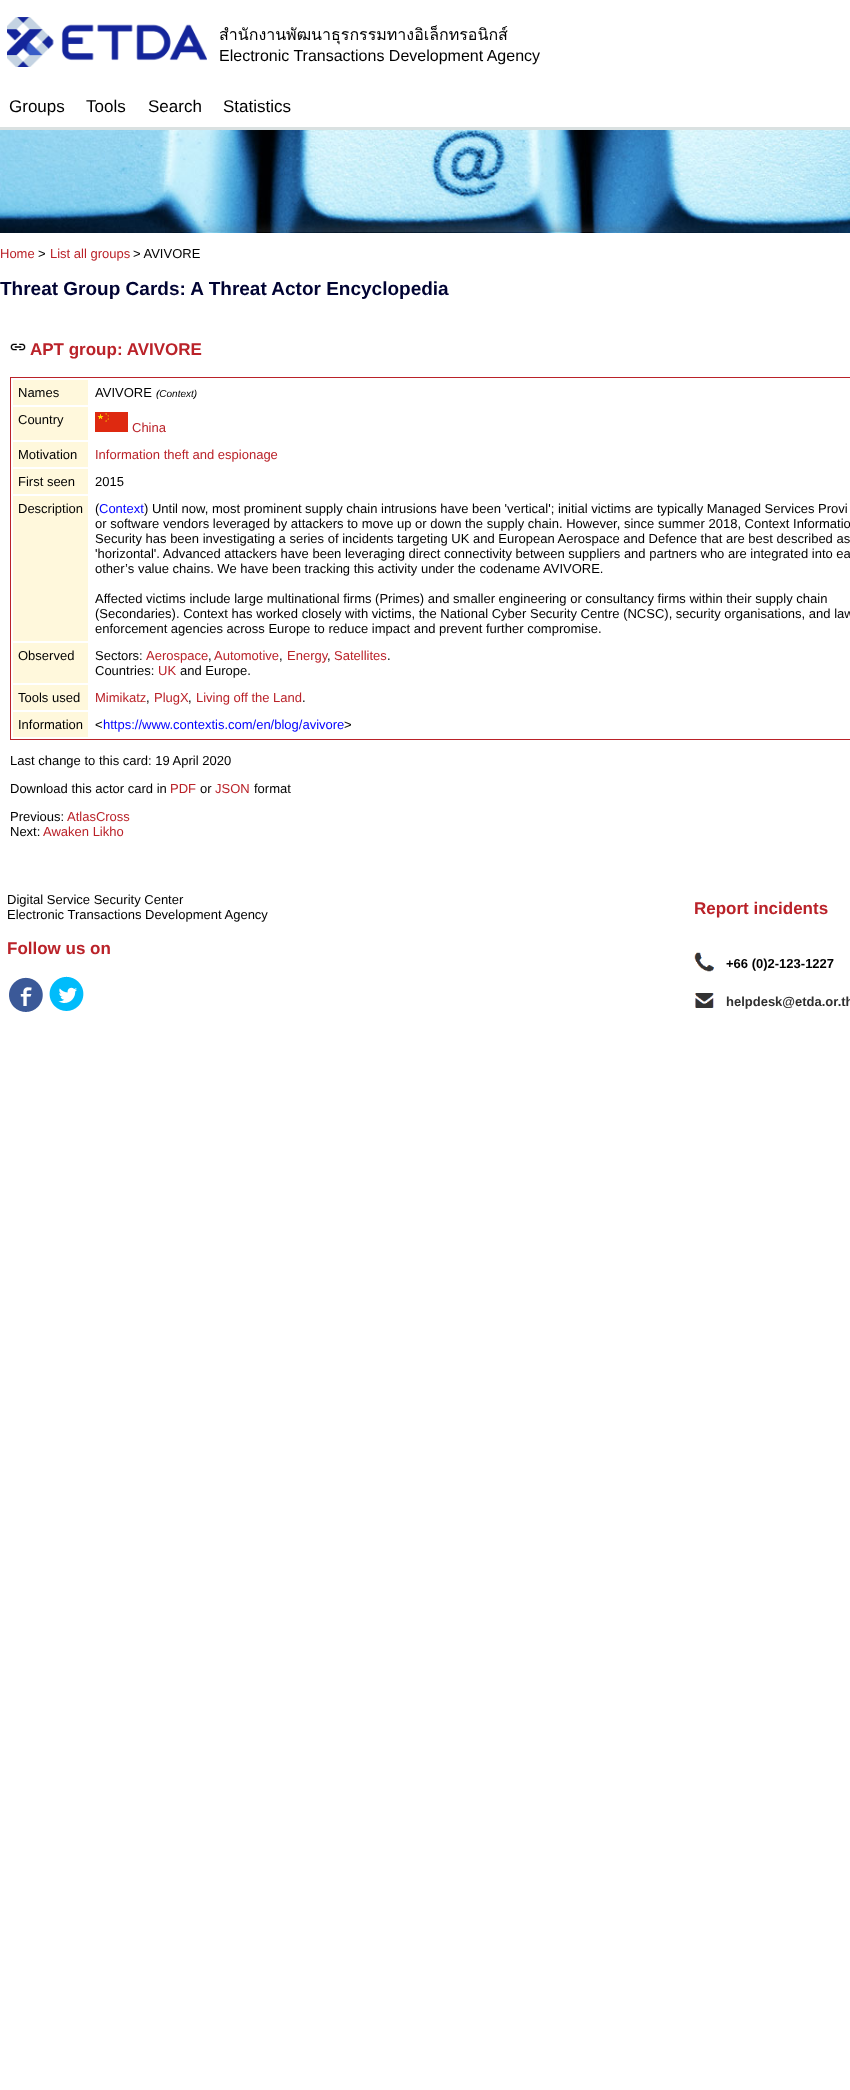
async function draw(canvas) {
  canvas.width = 850
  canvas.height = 2090
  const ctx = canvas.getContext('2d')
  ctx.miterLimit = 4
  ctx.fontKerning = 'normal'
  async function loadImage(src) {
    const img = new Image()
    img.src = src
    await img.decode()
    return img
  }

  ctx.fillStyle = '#fff'
  ctx.fillRect(0, 0, 850, 2090)
  ctx.drawImage(await loadImage('image0.png'), 7, 17, 200, 50)
  ctx.font = '16px Loma'
  ctx.fillStyle = '#000'
  ctx.fillText('สำนักงานพัฒนาธุรกรรมทางอิเล็กทรอนิกส์', 219, 40)
  ctx.font = '16px Liberation Sans'
  ctx.fillText('Electronic Transactions Development Agency', 219, 61)
  ctx.font = '17px Liberation Sans'
  ctx.fillText('Groups', 9, 112)
  ctx.fillText('Tools', 86, 112)
  ctx.fillText('Search', 148, 112)
  ctx.fillText('Statistics', 223, 112)
  ctx.fillStyle = '#dae1e1'
  ctx.fillRect(0, 127, 850, 3)
  ctx.drawImage(await loadImage('image1.png'), 0, 130, 850, 103)
  ctx.font = '13px Liberation Sans'
  ctx.fillStyle = '#ba2229'
  ctx.fillText('Home', 0, 258)
  ctx.fillStyle = '#000'
  ctx.fillText('>', 38, 258)
  ctx.fillStyle = '#ba2229'
  ctx.fillText('List all groups', 50, 258)
  ctx.fillStyle = '#000'
  ctx.fillText('> AVIVORE', 133, 258)
  ctx.font = 'bold 19px Liberation Sans'
  ctx.fillStyle = '#000333'
  ctx.fillText('Threat Group Cards: A Threat Actor Encyclopedia', 0, 295)
  ctx.drawImage(await loadImage('image2.png'), 10, 343, 16, 8)
  ctx.font = 'bold 17px Liberation Sans'
  ctx.fillStyle = '#ba2229'
  ctx.fillText('APT group: AVIVORE', 30, 355)
  ctx.strokeStyle = '#ba2229'
  ctx.strokeRect(10.5, 377.5, 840, 362)
  ctx.fillStyle = '#fff8dc'
  ctx.fillRect(13, 380, 75, 25)
  ctx.font = '13px Liberation Sans'
  ctx.fillStyle = '#000'
  ctx.fillText('Names', 18, 397)
  ctx.fillText('AVIVORE', 95, 397)
  ctx.font = 'italic 10px Liberation Sans'
  ctx.fillText('(Context)', 156, 397)
  ctx.fillStyle = '#fff8dc'
  ctx.fillRect(13, 407, 75, 33)
  ctx.font = '13px Liberation Sans'
  ctx.fillStyle = '#000'
  ctx.fillText('Country', 18, 424)
  ctx.drawImage(await loadImage('image3.png'), 95, 412, 33, 20)
  ctx.fillStyle = '#ba2229'
  ctx.fillText('China', 132, 432)
  ctx.fillStyle = '#fff8dc'
  ctx.fillRect(13, 442, 75, 25)
  ctx.fillStyle = '#000'
  ctx.fillText('Motivation', 18, 459)
  ctx.fillStyle = '#ba2229'
  ctx.fillText('Information theft and espionage', 95, 459)
  ctx.fillStyle = '#fff8dc'
  ctx.fillRect(13, 469, 75, 25)
  ctx.fillStyle = '#000'
  ctx.fillText('First seen', 18, 486)
  ctx.fillText('2015', 95, 486)
  ctx.fillStyle = '#fff8dc'
  ctx.fillRect(13, 496, 75, 145)
  ctx.fillStyle = '#000'
  ctx.fillText('Description', 18, 513)
  ctx.fillText('(', 95, 513)
  ctx.fillStyle = '#00f'
  ctx.fillText('Context', 99, 513)
  ctx.fillStyle = '#000'
  ctx.fillText(') Until now, most prominent supply chain intrusions have been \'vertical\'; initial victims are typically Managed Services Provi', 144, 513)
  ctx.fillText('or software vendors leveraged by attackers to move up or down the supply chain. However, since summer 2018, Context Informatio', 95, 528)
  ctx.fillText('Security has been investigating a series of incidents targeting UK and European Aerospace and Defence that are best described as', 95, 543)
  ctx.fillText('\'horizontal\'. Advanced attackers have been leveraging direct connectivity between suppliers and partners who are integrated into ea', 95, 558)
  ctx.fillText('other’s value chains. We have been tracking this activity under the codename AVIVORE.', 95, 573)
  ctx.fillText('Affected victims include large multinational firms (Primes) and smaller engineering or consultancy firms within their supply chain', 95, 603)
  ctx.fillText('(Secondaries). Context has worked closely with victims, the National Cyber Security Centre (NCSC), security organisations, and law', 95, 618)
  ctx.fillText('enforcement agencies across Europe to reduce impact and prevent further compromise.', 95, 633)
  ctx.fillStyle = '#fff8dc'
  ctx.fillRect(13, 643, 75, 40)
  ctx.fillStyle = '#000'
  ctx.fillText('Observed', 18, 660)
  ctx.fillText('Sectors:', 95, 660)
  ctx.fillStyle = '#ba2229'
  ctx.fillText('Aerospace', 146, 660)
  ctx.fillStyle = '#000'
  ctx.fillText(',', 208, 660)
  ctx.fillStyle = '#ba2229'
  ctx.fillText('Automotive', 214, 660)
  ctx.fillStyle = '#000'
  ctx.fillText(',', 279, 660)
  ctx.fillStyle = '#ba2229'
  ctx.fillText('Energy', 287, 660)
  ctx.fillStyle = '#000'
  ctx.fillText(',', 327, 660)
  ctx.fillStyle = '#ba2229'
  ctx.fillText('Satellites', 334, 660)
  ctx.fillStyle = '#000'
  ctx.fillText('.', 387, 660)
  ctx.fillText('Countries:', 95, 675)
  ctx.fillStyle = '#ba2229'
  ctx.fillText('UK', 158, 675)
  ctx.fillStyle = '#000'
  ctx.fillText('and Europe.', 180, 675)
  ctx.fillStyle = '#fff8dc'
  ctx.fillRect(13, 685, 75, 25)
  ctx.fillStyle = '#000'
  ctx.fillText('Tools used', 18, 702)
  ctx.fillStyle = '#ba2229'
  ctx.fillText('Mimikatz', 95, 702)
  ctx.fillStyle = '#000'
  ctx.fillText(',', 146, 702)
  ctx.fillStyle = '#ba2229'
  ctx.fillText('PlugX', 154, 702)
  ctx.fillStyle = '#000'
  ctx.fillText(',', 188, 702)
  ctx.fillStyle = '#ba2229'
  ctx.fillText('Living off the Land', 196, 702)
  ctx.fillStyle = '#000'
  ctx.fillText('.', 302, 702)
  ctx.fillStyle = '#fff8dc'
  ctx.fillRect(13, 712, 75, 25)
  ctx.fillStyle = '#000'
  ctx.fillText('Information', 18, 729)
  ctx.fillText('<', 95, 729)
  ctx.fillStyle = '#00f'
  ctx.fillText('https://www.contextis.com/en/blog/avivore', 103, 729)
  ctx.fillStyle = '#000'
  ctx.fillText('>', 344, 729)
  ctx.fillText('Last change to this card: 19 April 2020', 10, 765)
  ctx.fillText('Download this actor card in', 10, 793)
  ctx.fillStyle = '#ba2229'
  ctx.fillText('PDF', 170, 793)
  ctx.fillStyle = '#000'
  ctx.fillText('or', 200, 793)
  ctx.fillStyle = '#ba2229'
  ctx.fillText('JSON', 215, 793)
  ctx.fillStyle = '#000'
  ctx.fillText('format', 254, 793)
  ctx.fillText('Previous:', 10, 821)
  ctx.fillStyle = '#ba2229'
  ctx.fillText('AtlasCross', 67, 821)
  ctx.fillStyle = '#000'
  ctx.fillText('Next:', 10, 836)
  ctx.fillStyle = '#ba2229'
  ctx.fillText('Awaken Likho', 43, 836)
  ctx.fillStyle = '#000'
  ctx.fillText('Digital Service Security Center', 7, 904)
  ctx.fillText('Electronic Transactions Development Agency', 7, 919)
  ctx.font = 'bold 17px Liberation Sans'
  ctx.fillStyle = '#ba2229'
  ctx.fillText('Follow us on', 7, 954)
  ctx.drawImage(await loadImage('image4.png'), 9, 977, 34, 35)
  ctx.drawImage(await loadImage('image5.png'), 49, 976, 35, 35)
  ctx.fillText('Report incidents', 694, 914)
  ctx.drawImage(await loadImage('image6.png'), 694, 952, 20, 20)
  ctx.font = 'bold 13px Liberation Sans'
  ctx.fillStyle = '#000'
  ctx.fillText('+66 (0)2-123-1227', 726, 968)
  ctx.drawImage(await loadImage('image7.png'), 695, 993, 19, 15)
  ctx.fillStyle = '#303030'
  ctx.fillText('helpdesk@etda.or.th', 726, 1006)
}

draw(document.querySelector('canvas'))
